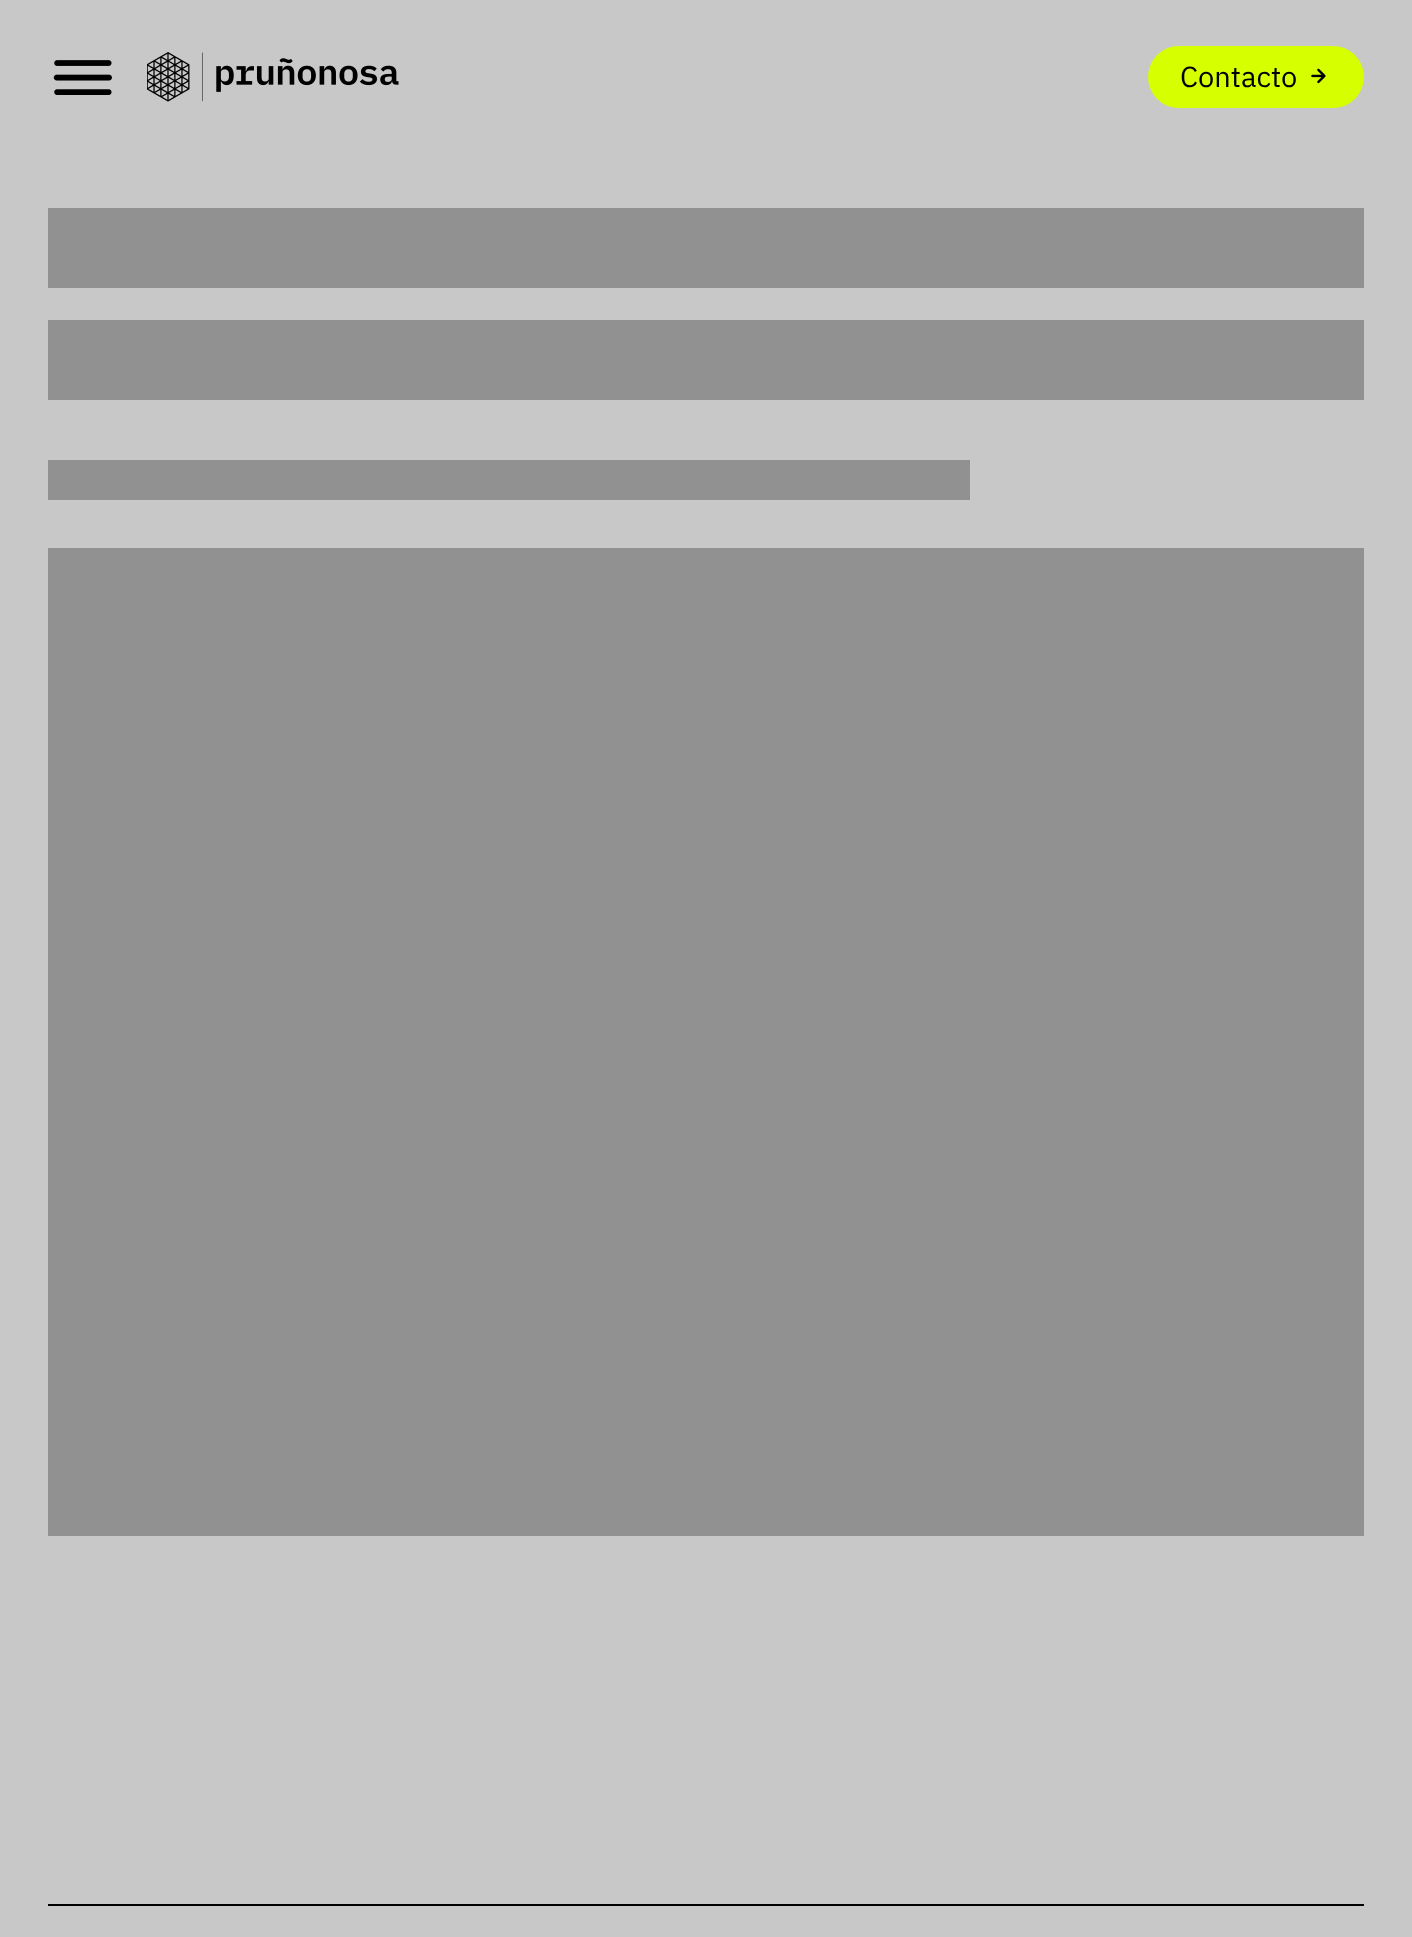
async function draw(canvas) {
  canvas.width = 1412
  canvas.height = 1937
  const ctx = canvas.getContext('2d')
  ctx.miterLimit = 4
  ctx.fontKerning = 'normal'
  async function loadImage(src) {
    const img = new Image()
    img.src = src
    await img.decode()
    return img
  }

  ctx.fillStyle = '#c8c8c8'
  ctx.fillRect(0, 0, 1412, 1937)
  ctx.drawImage(await loadImage('image0.png'), 53, 60, 59, 35)
  ctx.drawImage(await loadImage('image1.png'), 147, 52, 252, 50)
  ctx.fillStyle = '#d6ff00'
  ctx.beginPath()
  ctx.roundRect(1148, 46, 216, 62, 31)
  ctx.fill()
  ctx.font = '29px IBM Plex Sans'
  ctx.fillStyle = '#000'
  ctx.fillText('Contacto', 1180, 87)
  ctx.drawImage(await loadImage('image2.png'), 1311, 68, 15, 16)
  ctx.fillStyle = '#919191'
  ctx.fillRect(48, 208, 1316, 80)
  ctx.fillRect(48, 320, 1316, 80)
  ctx.fillRect(48, 460, 922, 40)
  ctx.fillRect(48, 548, 1316, 988)
  ctx.fillStyle = '#000'
  ctx.fillRect(48, 1904, 1316, 2)
}

draw(document.querySelector('canvas'))
